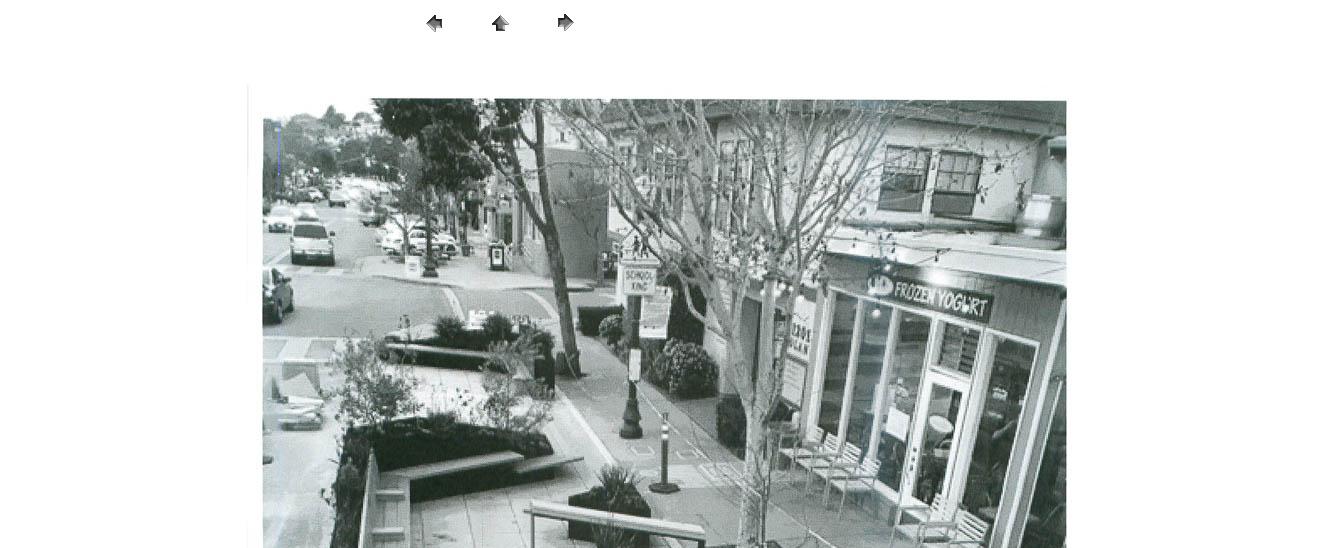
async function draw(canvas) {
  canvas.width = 1324
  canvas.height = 548
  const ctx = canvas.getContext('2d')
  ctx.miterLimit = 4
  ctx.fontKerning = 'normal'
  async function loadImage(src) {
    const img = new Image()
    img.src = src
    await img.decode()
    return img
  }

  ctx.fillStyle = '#fff'
  ctx.fillRect(0, 0, 1324, 548)
  ctx.drawImage(await loadImage('image0.png'), 426, 15, 16, 17)
  ctx.drawImage(await loadImage('image1.png'), 492, 15, 17, 16)
  ctx.drawImage(await loadImage('image2.png'), 558, 14, 16, 17)
  ctx.drawImage(await loadImage('image3.png'), 246, 84, 826, 464)
}

draw(document.querySelector('canvas'))
